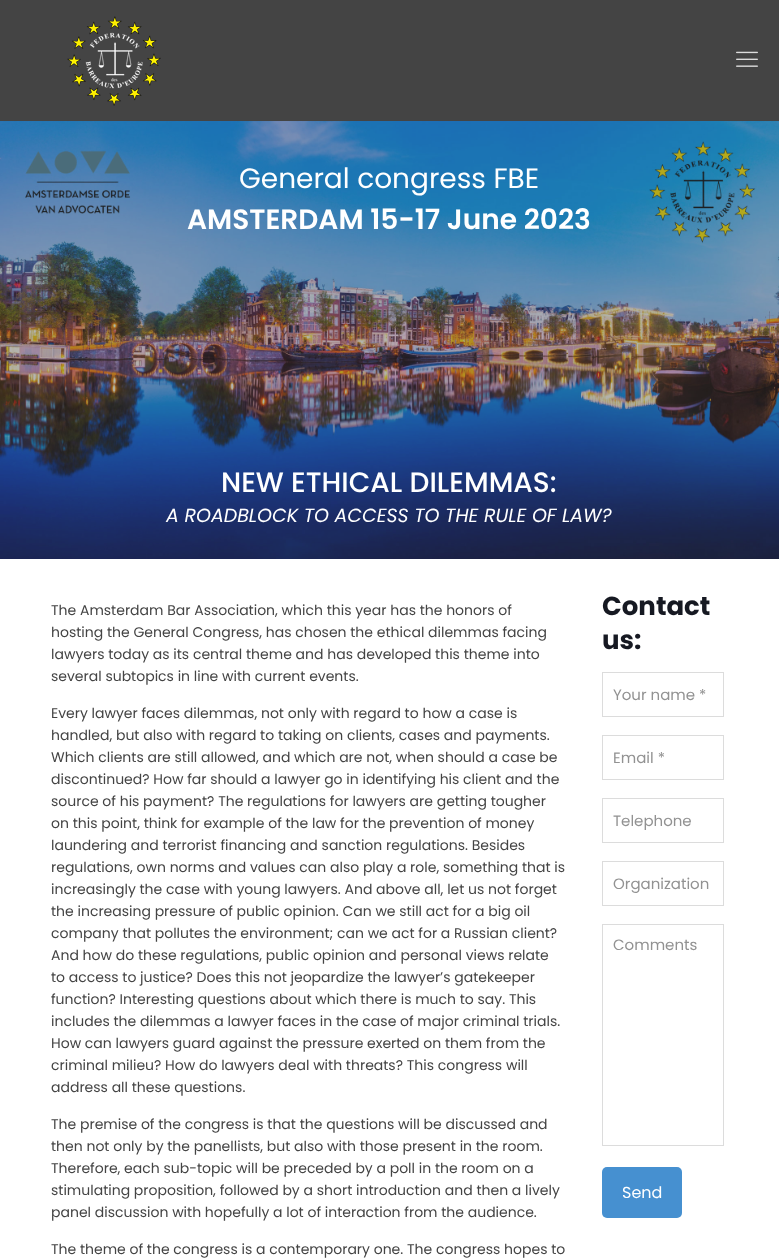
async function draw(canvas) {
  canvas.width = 779
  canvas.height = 1258
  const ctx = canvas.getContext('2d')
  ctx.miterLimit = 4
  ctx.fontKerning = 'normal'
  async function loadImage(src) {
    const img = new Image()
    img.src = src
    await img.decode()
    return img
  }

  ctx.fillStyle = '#fff'
  ctx.fillRect(0, 0, 779, 1258)
  ctx.fillStyle = '#444'
  ctx.fillRect(0, 0, 779, 559)
  ctx.drawImage(await loadImage('image0.png'), 67, 16, 94, 90)
  ctx.drawImage(await loadImage('image1.png'), 736, 51, 22, 16)
  ctx.drawImage(await loadImage('image2.png'), 0, 121, 779, 438)
  ctx.font = '28px Poppins'
  ctx.fillStyle = '#fff'
  ctx.fillText('General congress FBE', 239, 188)
  ctx.font = '600 28px Poppins'
  ctx.fillText('AMSTERDAM 15-17 June 2023', 187, 229)
  ctx.font = '500 28px Poppins'
  ctx.fillText('NEW ETHICAL DILEMMAS:', 221, 492)
  ctx.font = 'italic 19px Poppins'
  ctx.fillText('A ROADBLOCK TO ACCESS TO THE RULE OF LAW?', 166, 522)
  ctx.font = '14px Poppins'
  ctx.fillStyle = '#444'
  ctx.fillText('The Amsterdam Bar Association, which this year has the honors of', 51, 615)
  ctx.fillText('hosting the General Congress, has chosen the ethical dilemmas facing', 51, 637)
  ctx.fillText('lawyers today as its central theme and has developed this theme into', 51, 659)
  ctx.fillText('several subtopics in line with current events.', 51, 681)
  ctx.fillText('Every lawyer faces dilemmas, not only with regard to how a case is', 51, 718)
  ctx.fillText('handled, but also with regard to taking on clients, cases and payments.', 51, 740)
  ctx.fillText('Which clients are still allowed, and which are not, when should a case be', 51, 762)
  ctx.fillText('discontinued? How far should a lawyer go in identifying his client and the', 51, 784)
  ctx.fillText('source of his payment? The regulations for lawyers are getting tougher', 51, 806)
  ctx.fillText('on this point, think for example of the law for the prevention of money', 51, 828)
  ctx.fillText('laundering and terrorist financing and sanction regulations. Besides', 51, 850)
  ctx.fillText('regulations, own norms and values can also play a role, something that is', 51, 872)
  ctx.fillText('increasingly the case with young lawyers. And above all, let us not forget', 51, 894)
  ctx.fillText('the increasing pressure of public opinion. Can we still act for a big oil', 51, 916)
  ctx.fillText('company that pollutes the environment; can we act for a Russian client?', 51, 938)
  ctx.fillText('And how do these regulations, public opinion and personal views relate', 51, 960)
  ctx.fillText('to access to justice? Does this not jeopardize the lawyer’s gatekeeper', 51, 982)
  ctx.fillText('function? Interesting questions about which there is much to say. This', 51, 1004)
  ctx.fillText('includes the dilemmas a lawyer faces in the case of major criminal trials.', 51, 1026)
  ctx.fillText('How can lawyers guard against the pressure exerted on them from the', 51, 1048)
  ctx.fillText('criminal milieu? How do lawyers deal with threats? This congress will', 51, 1070)
  ctx.fillText('address all these questions.', 51, 1092)
  ctx.fillText('The premise of the congress is that the questions will be discussed and', 51, 1129)
  ctx.fillText('then not only by the panellists, but also with those present in the room.', 51, 1151)
  ctx.fillText('Therefore, each sub-topic will be preceded by a poll in the room on a', 51, 1173)
  ctx.fillText('stimulating proposition, followed by a short introduction and then a lively', 51, 1195)
  ctx.fillText('panel discussion with hopefully a lot of interaction from the audience.', 51, 1217)
  ctx.fillText('The theme of the congress is a contemporary one. The congress hopes to', 51, 1254)
  ctx.font = 'bold 26px Poppins'
  ctx.fillStyle = '#161922'
  ctx.fillText('Contact', 602, 615)
  ctx.fillText('us:', 602, 649)
  ctx.strokeStyle = '#dcdcdc'
  ctx.strokeRect(602.5, 672.5, 121, 44)
  ctx.font = '15px Poppins'
  ctx.fillStyle = '#929292'
  ctx.fillText('Your name *', 613, 700)
  ctx.strokeRect(602.5, 735.5, 121, 44)
  ctx.fillText('Email *', 613, 763)
  ctx.strokeRect(602.5, 798.5, 121, 44)
  ctx.fillText('Telephone', 613, 826)
  ctx.strokeRect(602.5, 861.5, 121, 44)
  ctx.fillText('Organization', 613, 889)
  ctx.strokeRect(602.5, 924.5, 121, 221)
  ctx.fillText('Comments', 613, 950)
  ctx.fillStyle = '#4690d0'
  ctx.beginPath()
  ctx.roundRect(602, 1167, 80, 51, 5)
  ctx.fill()
  ctx.font = '16px Poppins'
  ctx.fillStyle = '#fff'
  ctx.fillText('Send', 622, 1198)
}

draw(document.querySelector('canvas'))
